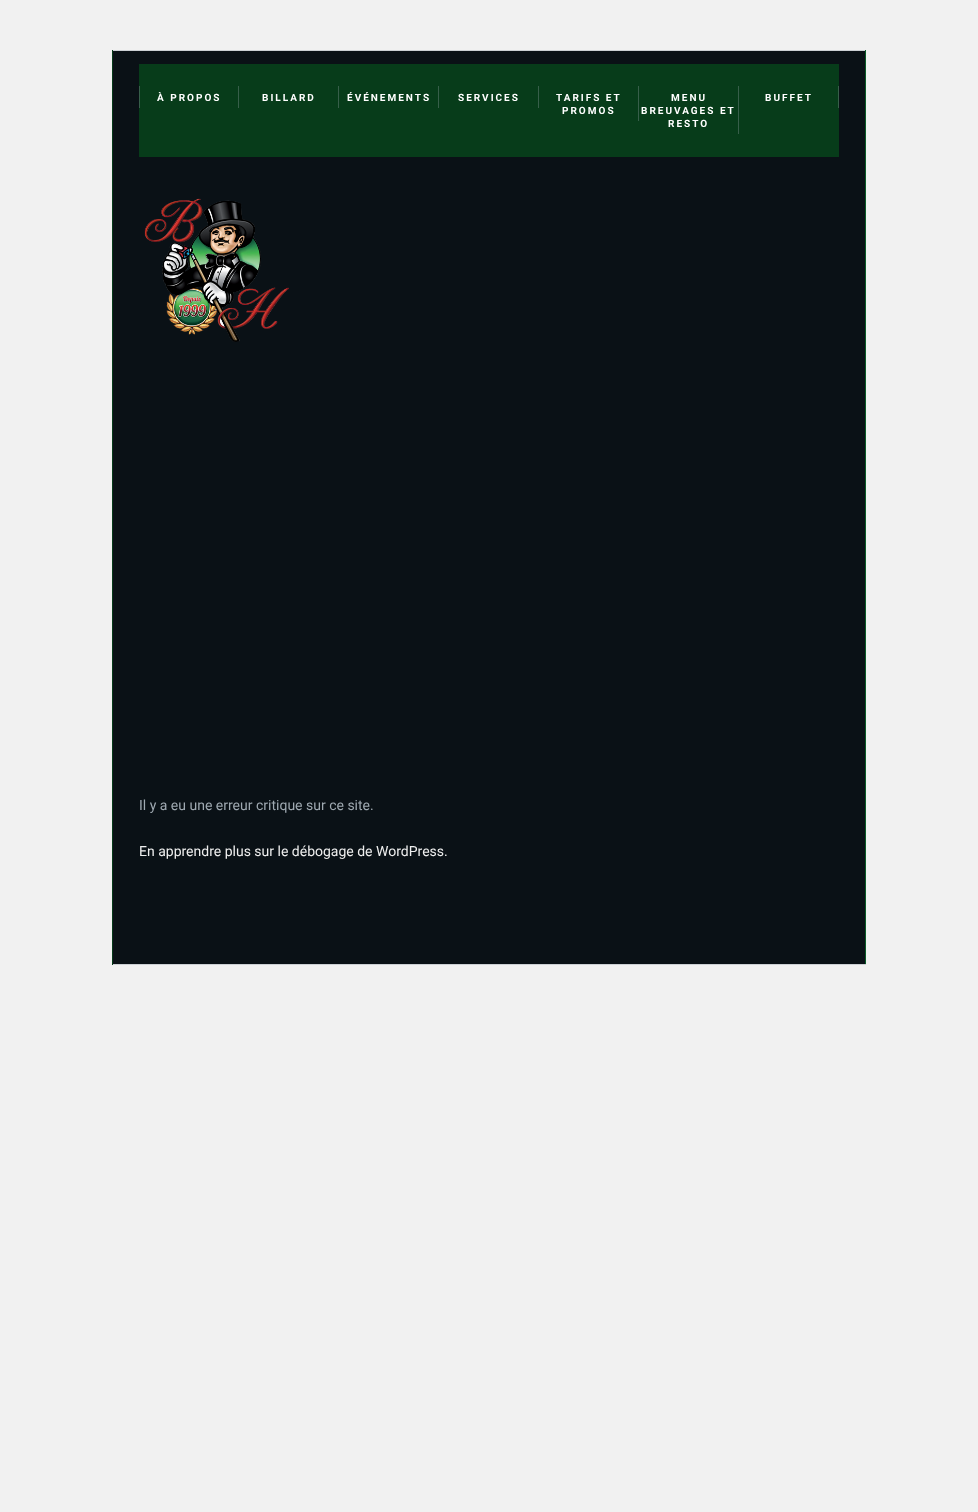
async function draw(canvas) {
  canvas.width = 978
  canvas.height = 1512
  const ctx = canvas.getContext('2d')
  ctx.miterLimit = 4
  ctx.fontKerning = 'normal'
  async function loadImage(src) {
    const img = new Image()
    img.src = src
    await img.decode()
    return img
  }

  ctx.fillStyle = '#f1f1f1'
  ctx.fillRect(0, 0, 978, 1512)
  ctx.fillStyle = '#0a1116'
  ctx.fillRect(113, 51, 752, 913)
  ctx.fillStyle = '#ccd0d4'
  ctx.fillRect(112, 50, 754, 1)
  ctx.fillStyle = '#0a5d28'
  ctx.fillRect(865, 50, 1, 915)
  ctx.fillStyle = '#ccd0d4'
  ctx.fillRect(112, 964, 754, 1)
  ctx.fillStyle = '#063a19'
  ctx.fillRect(112, 50, 1, 915)
  ctx.fillStyle = '#073c1a'
  ctx.fillRect(139, 64, 700, 93)
  ctx.fillStyle = '#375f4a'
  ctx.fillRect(238, 86, 1, 22)
  ctx.fillRect(139, 86, 1, 22)
  ctx.letterSpacing = '2px'
  ctx.font = 'bold 10px Roboto'
  ctx.fillStyle = '#fff'
  ctx.fillText('À PROPOS', 157, 101)
  ctx.fillStyle = '#375f4a'
  ctx.fillRect(338, 86, 1, 22)
  ctx.fillStyle = '#fff'
  ctx.fillText('BILLARD', 262, 101)
  ctx.fillStyle = '#375f4a'
  ctx.fillRect(438, 86, 1, 22)
  ctx.fillStyle = '#fff'
  ctx.fillText('ÉVÉNEMENTS', 347, 101)
  ctx.fillStyle = '#375f4a'
  ctx.fillRect(538, 86, 1, 22)
  ctx.fillStyle = '#fff'
  ctx.fillText('SERVICES', 458, 101)
  ctx.fillStyle = '#375f4a'
  ctx.fillRect(638, 86, 1, 35)
  ctx.fillStyle = '#fff'
  ctx.fillText('TARIFS ET', 556, 101)
  ctx.fillText('PROMOS', 562, 114)
  ctx.fillStyle = '#375f4a'
  ctx.fillRect(738, 86, 1, 48)
  ctx.fillStyle = '#fff'
  ctx.fillText('MENU', 671, 101)
  ctx.fillText('BREUVAGES ET', 641, 114)
  ctx.fillText('RESTO', 668, 127)
  ctx.fillStyle = '#375f4a'
  ctx.fillRect(838, 86, 1, 22)
  ctx.fillStyle = '#fff'
  ctx.fillText('BUFFET', 765, 101)
  ctx.drawImage(await loadImage('image0.png'), 144, 198, 145, 144)
  ctx.letterSpacing = '0px'
  ctx.font = '14px Roboto'
  ctx.fillStyle = '#9fa9b1'
  ctx.fillText('Il y a eu une erreur critique sur ce site.', 139, 810)
  ctx.fillStyle = '#eee'
  ctx.fillText('En apprendre plus sur le débogage de WordPress.', 139, 856)
}

draw(document.querySelector('canvas'))
